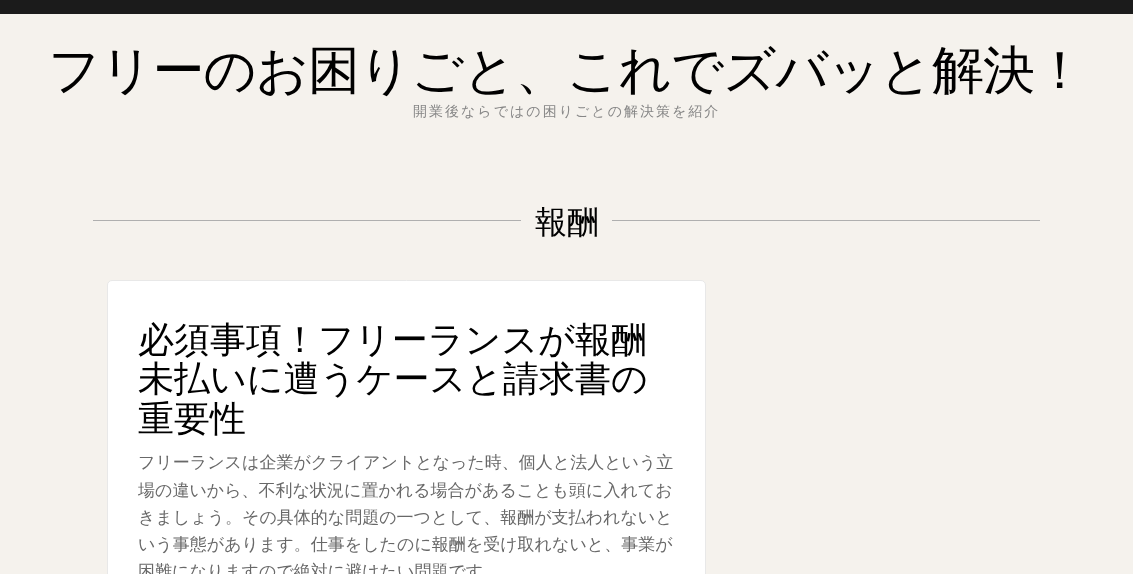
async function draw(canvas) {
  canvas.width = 1133
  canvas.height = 574
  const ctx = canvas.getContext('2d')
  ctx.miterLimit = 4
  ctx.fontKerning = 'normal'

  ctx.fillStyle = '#1b1b1b'
  ctx.fillRect(0, 0, 1133, 574)
  ctx.fillStyle = '#f5f2ed'
  ctx.fillRect(0, 14, 1133, 560)
  ctx.letterSpacing = '-1px'
  ctx.font = '500 52px WenQuanYi Zen Hei'
  ctx.fillStyle = '#000'
  ctx.fillText('フリーのお困りごと、これでズバッと解決！', 48, 88)
  ctx.letterSpacing = '2px'
  ctx.font = '500 14px WenQuanYi Zen Hei'
  ctx.fillStyle = '#868686'
  ctx.fillText('開業後ならではの困りごとの解決策を紹介', 413, 116)
  ctx.fillStyle = '#afafaf'
  ctx.fillRect(93, 220, 428, 1)
  ctx.letterSpacing = '0px'
  ctx.font = '500 32px WenQuanYi Zen Hei'
  ctx.fillStyle = '#000'
  ctx.fillText('報酬', 535, 233)
  ctx.fillStyle = '#afafaf'
  ctx.fillRect(612, 220, 428, 1)
  ctx.fillStyle = '#fff'
  ctx.beginPath()
  ctx.roundRect(107.5, 280.5, 598, 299, 4.5)
  ctx.fill()
  ctx.strokeStyle = '#e8e8e8'
  ctx.stroke()
  ctx.font = '500 36px WenQuanYi Zen Hei'
  ctx.fillStyle = '#000'
  ctx.fillText('必須事項！フリーランスが報酬', 138, 352)
  ctx.fillText('未払いに遭うケースと請求書の', 138, 391)
  ctx.fillText('重要性', 138, 431)
  ctx.font = '500 17px WenQuanYi Zen Hei'
  ctx.fillStyle = '#686868'
  ctx.fillText('フリーランスは企業がクライアントとなった時、個人と法人という立', 138, 468)
  ctx.fillText('場の違いから、不利な状況に置かれる場合があることも頭に入れてお', 138, 496)
  ctx.fillText('きましょう。その具体的な問題の一つとして、報酬が支払われないと', 138, 523)
  ctx.fillText('いう事態があります。仕事をしたのに報酬を受け取れないと、事業が', 138, 550)
  ctx.fillText('困難になりますので絶対に避けたい問題です', 138, 577)
}

draw(document.querySelector('canvas'))
